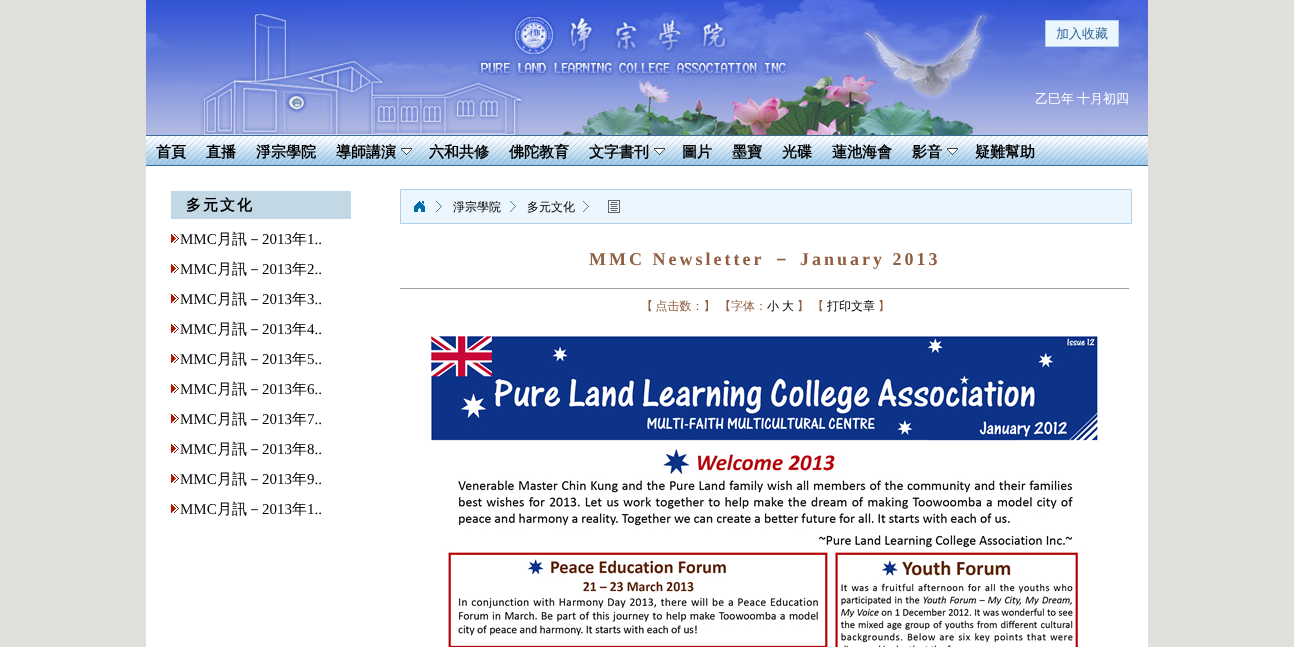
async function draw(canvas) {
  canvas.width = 1294
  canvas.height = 647
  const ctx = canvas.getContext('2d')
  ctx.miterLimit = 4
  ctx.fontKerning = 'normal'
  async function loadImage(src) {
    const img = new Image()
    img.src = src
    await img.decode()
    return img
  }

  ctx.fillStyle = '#e1dfdb'
  ctx.fillRect(0, 0, 1294, 647)
  ctx.fillStyle = '#fff'
  ctx.fillRect(146, 166, 1002, 481)
  ctx.drawImage(await loadImage('image0.png'), 146, 0, 1002, 135)
  ctx.fillStyle = '#ecf6ff'
  ctx.beginPath()
  ctx.rect(1045.5, 20.5, 73, 26)
  ctx.fill()
  ctx.strokeStyle = '#b2cfe8'
  ctx.stroke()
  ctx.font = '500 13px WenQuanYi Zen Hei'
  ctx.fillStyle = '#369'
  ctx.fillText('加入收藏', 1056, 38)
  ctx.wordSpacing = '-1px'
  ctx.fillStyle = '#fff'
  ctx.fillText('乙巳年 十月初四', 1035, 103)
  ctx.drawImage(await loadImage('image1.png'), 146, 135, 1002, 31)
  ctx.wordSpacing = '0px'
  ctx.font = 'bold 15px WenQuanYi Zen Hei'
  ctx.fillStyle = '#000'
  ctx.fillText('首頁', 156, 157)
  ctx.fillText('直播', 206, 157)
  ctx.fillText('淨宗學院', 256, 157)
  ctx.fillText('導師講演', 336, 157)
  ctx.drawImage(await loadImage('image2.png'), 401, 148, 11, 7)
  ctx.fillText('六和共修', 429, 157)
  ctx.fillText('佛陀教育', 509, 157)
  ctx.fillText('文字書刊', 589, 157)
  ctx.drawImage(await loadImage('image3.png'), 654, 148, 11, 7)
  ctx.fillText('圖片', 682, 157)
  ctx.fillText('墨寶', 732, 157)
  ctx.fillText('光碟', 782, 157)
  ctx.fillText('蓮池海會', 832, 157)
  ctx.fillText('影音', 912, 157)
  ctx.drawImage(await loadImage('image2.png'), 947, 148, 11, 7)
  ctx.fillText('疑難幫助', 975, 157)
  ctx.fillStyle = '#c3d8e5'
  ctx.fillRect(171, 191, 180, 28)
  ctx.letterSpacing = '2px'
  ctx.fillStyle = '#000'
  ctx.fillText('多元文化', 186, 210)
  ctx.drawImage(await loadImage('image4.png'), 171, 234, 8, 9)
  ctx.letterSpacing = '0px'
  ctx.font = '15px Liberation Serif'
  ctx.fillText('MMC', 180, 244)
  ctx.font = '500 15px WenQuanYi Zen Hei'
  ctx.fillText('月訊－', 217, 244)
  ctx.font = '15px Liberation Serif'
  ctx.fillText('2013', 262, 244)
  ctx.font = '500 15px WenQuanYi Zen Hei'
  ctx.fillText('年', 292, 244)
  ctx.font = '15px Liberation Serif'
  ctx.fillText('1..', 307, 244)
  ctx.drawImage(await loadImage('image4.png'), 171, 264, 8, 9)
  ctx.fillText('MMC', 180, 274)
  ctx.font = '500 15px WenQuanYi Zen Hei'
  ctx.fillText('月訊－', 217, 274)
  ctx.font = '15px Liberation Serif'
  ctx.fillText('2013', 262, 274)
  ctx.font = '500 15px WenQuanYi Zen Hei'
  ctx.fillText('年', 292, 274)
  ctx.font = '15px Liberation Serif'
  ctx.fillText('2..', 307, 274)
  ctx.drawImage(await loadImage('image4.png'), 171, 294, 8, 9)
  ctx.fillText('MMC', 180, 304)
  ctx.font = '500 15px WenQuanYi Zen Hei'
  ctx.fillText('月訊－', 217, 304)
  ctx.font = '15px Liberation Serif'
  ctx.fillText('2013', 262, 304)
  ctx.font = '500 15px WenQuanYi Zen Hei'
  ctx.fillText('年', 292, 304)
  ctx.font = '15px Liberation Serif'
  ctx.fillText('3..', 307, 304)
  ctx.drawImage(await loadImage('image4.png'), 171, 324, 8, 9)
  ctx.fillText('MMC', 180, 334)
  ctx.font = '500 15px WenQuanYi Zen Hei'
  ctx.fillText('月訊－', 217, 334)
  ctx.font = '15px Liberation Serif'
  ctx.fillText('2013', 262, 334)
  ctx.font = '500 15px WenQuanYi Zen Hei'
  ctx.fillText('年', 292, 334)
  ctx.font = '15px Liberation Serif'
  ctx.fillText('4..', 307, 334)
  ctx.drawImage(await loadImage('image4.png'), 171, 354, 8, 9)
  ctx.fillText('MMC', 180, 364)
  ctx.font = '500 15px WenQuanYi Zen Hei'
  ctx.fillText('月訊－', 217, 364)
  ctx.font = '15px Liberation Serif'
  ctx.fillText('2013', 262, 364)
  ctx.font = '500 15px WenQuanYi Zen Hei'
  ctx.fillText('年', 292, 364)
  ctx.font = '15px Liberation Serif'
  ctx.fillText('5..', 307, 364)
  ctx.drawImage(await loadImage('image4.png'), 171, 384, 8, 9)
  ctx.fillText('MMC', 180, 394)
  ctx.font = '500 15px WenQuanYi Zen Hei'
  ctx.fillText('月訊－', 217, 394)
  ctx.font = '15px Liberation Serif'
  ctx.fillText('2013', 262, 394)
  ctx.font = '500 15px WenQuanYi Zen Hei'
  ctx.fillText('年', 292, 394)
  ctx.font = '15px Liberation Serif'
  ctx.fillText('6..', 307, 394)
  ctx.drawImage(await loadImage('image4.png'), 171, 414, 8, 9)
  ctx.fillText('MMC', 180, 424)
  ctx.font = '500 15px WenQuanYi Zen Hei'
  ctx.fillText('月訊－', 217, 424)
  ctx.font = '15px Liberation Serif'
  ctx.fillText('2013', 262, 424)
  ctx.font = '500 15px WenQuanYi Zen Hei'
  ctx.fillText('年', 292, 424)
  ctx.font = '15px Liberation Serif'
  ctx.fillText('7..', 307, 424)
  ctx.drawImage(await loadImage('image4.png'), 171, 444, 8, 9)
  ctx.fillText('MMC', 180, 454)
  ctx.font = '500 15px WenQuanYi Zen Hei'
  ctx.fillText('月訊－', 217, 454)
  ctx.font = '15px Liberation Serif'
  ctx.fillText('2013', 262, 454)
  ctx.font = '500 15px WenQuanYi Zen Hei'
  ctx.fillText('年', 292, 454)
  ctx.font = '15px Liberation Serif'
  ctx.fillText('8..', 307, 454)
  ctx.drawImage(await loadImage('image4.png'), 171, 474, 8, 9)
  ctx.fillText('MMC', 180, 484)
  ctx.font = '500 15px WenQuanYi Zen Hei'
  ctx.fillText('月訊－', 217, 484)
  ctx.font = '15px Liberation Serif'
  ctx.fillText('2013', 262, 484)
  ctx.font = '500 15px WenQuanYi Zen Hei'
  ctx.fillText('年', 292, 484)
  ctx.font = '15px Liberation Serif'
  ctx.fillText('9..', 307, 484)
  ctx.drawImage(await loadImage('image4.png'), 171, 504, 8, 9)
  ctx.fillText('MMC', 180, 514)
  ctx.font = '500 15px WenQuanYi Zen Hei'
  ctx.fillText('月訊－', 217, 514)
  ctx.font = '15px Liberation Serif'
  ctx.fillText('2013', 262, 514)
  ctx.font = '500 15px WenQuanYi Zen Hei'
  ctx.fillText('年', 292, 514)
  ctx.font = '15px Liberation Serif'
  ctx.fillText('1..', 307, 514)
  ctx.fillStyle = '#ecf6ff'
  ctx.beginPath()
  ctx.rect(400.5, 189.5, 731, 34)
  ctx.fill()
  ctx.stroke()
  ctx.drawImage(await loadImage('image5.png'), 436, 201, 6, 11)
  ctx.drawImage(await loadImage('image6.png'), 414, 201, 11, 11)
  ctx.drawImage(await loadImage('image5.png'), 510, 201, 6, 11)
  ctx.font = '500 12px WenQuanYi Zen Hei'
  ctx.fillStyle = '#000'
  ctx.fillText('淨宗學院', 453, 211)
  ctx.drawImage(await loadImage('image5.png'), 583, 201, 6, 11)
  ctx.fillText('多元文化', 527, 211)
  ctx.drawImage(await loadImage('image7.png'), 608, 200, 12, 13)
  ctx.letterSpacing = '3px'
  ctx.font = 'bold 18px Liberation Serif'
  ctx.fillStyle = '#905e40'
  ctx.fillText('MMC Newsletter', 589, 265)
  ctx.font = 'bold 18px WenQuanYi Zen Hei'
  ctx.fillText('－', 772, 265)
  ctx.font = 'bold 18px Liberation Serif'
  ctx.fillText('January 2013', 800, 265)
  ctx.fillStyle = '#9f9f9f'
  ctx.fillRect(400, 288, 730, 1)
  ctx.fillStyle = '#eee'
  ctx.fillRect(1129, 288, 1, 1)
  ctx.letterSpacing = '0px'
  ctx.wordSpacing = '-1px'
  ctx.font = '500 12px WenQuanYi Zen Hei'
  ctx.fillStyle = '#905e40'
  ctx.fillText('【 点击数：】', 641, 310)
  ctx.wordSpacing = '0px'
  ctx.fillText('【字体：', 719, 310)
  ctx.fillStyle = '#000'
  ctx.fillText('小', 767, 310)
  ctx.fillText('大', 782, 310)
  ctx.fillStyle = '#905e40'
  ctx.fillText('】', 797, 310)
  ctx.fillText('【', 812, 310)
  ctx.fillStyle = '#000'
  ctx.fillText('打印文章', 827, 310)
  ctx.fillStyle = '#905e40'
  ctx.fillText('】', 878, 310)
  ctx.drawImage(await loadImage('image8.png'), 431, 336, 667, 311)
}

draw(document.querySelector('canvas'))
